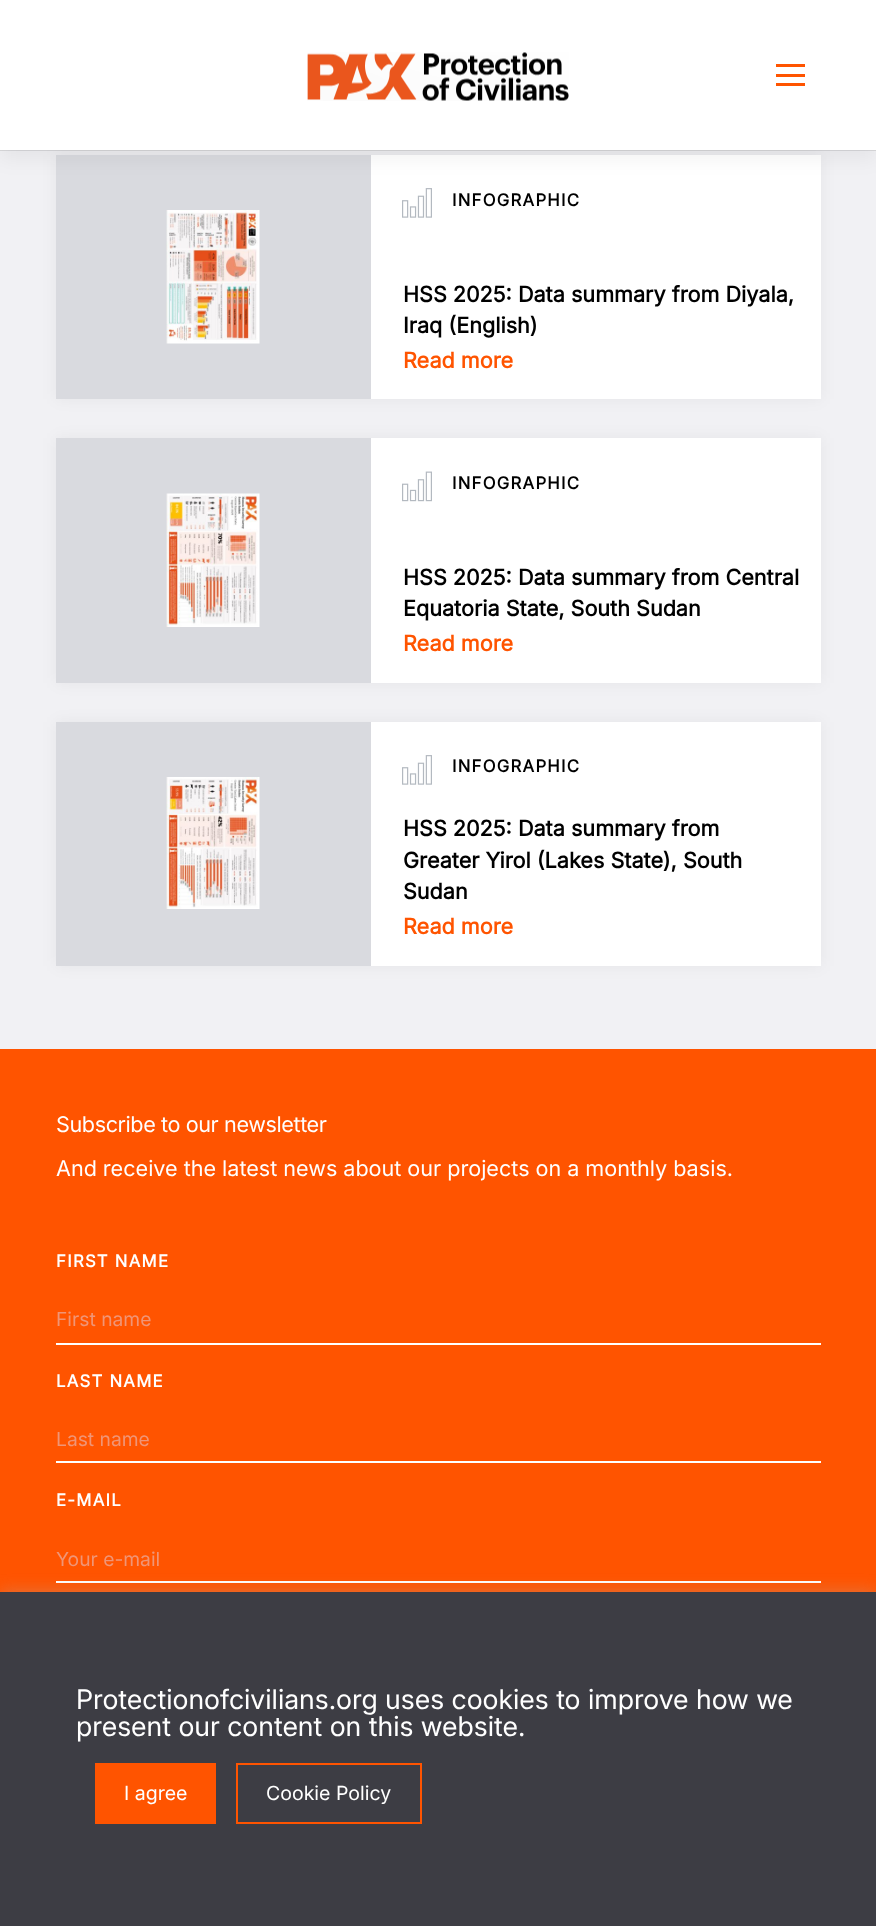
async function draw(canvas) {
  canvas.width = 876
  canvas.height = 1926
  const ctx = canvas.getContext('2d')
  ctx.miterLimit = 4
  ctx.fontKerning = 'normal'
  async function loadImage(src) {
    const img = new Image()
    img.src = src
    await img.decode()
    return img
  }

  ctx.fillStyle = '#f1f1f4'
  ctx.fillRect(0, 0, 876, 1926)
  ctx.fillStyle = '#0000000d'
  ctx.filter = 'blur(7.5px)'
  ctx.beginPath()
  ctx.rect(56, 155, 765, 244)
  ctx.fill()
  ctx.filter = 'none'
  ctx.fillStyle = '#d9dadf'
  ctx.fillRect(56, 155, 315, 244)
  ctx.fillStyle = '#fff'
  ctx.fillRect(371, 155, 450, 244)
  ctx.drawImage(await loadImage('image2.png'), 402, 188, 30, 30)
  ctx.fillStyle = '#0000000d'
  ctx.filter = 'blur(9.5px)'
  ctx.beginPath()
  ctx.rect(0, 9, 876, 150)
  ctx.fill()
  ctx.filter = 'none'
  ctx.fillStyle = '#0000001a'
  ctx.fillRect(0, 150, 876, 1)
  ctx.fillStyle = '#fff'
  ctx.fillRect(0, 0, 876, 150)
  ctx.drawImage(await loadImage('image0.png'), 307, 52, 262, 49)
  ctx.fillStyle = '#ff5400'
  ctx.fillRect(776, 64, 29, 3)
  ctx.fillRect(776, 74, 29, 3)
  ctx.fillRect(776, 83, 29, 3)
  ctx.drawImage(await loadImage('image1.png'), 166, 210, 94, 134)
  ctx.letterSpacing = '1.25px'
  ctx.font = 'bold 16.75px Inter'
  ctx.fillStyle = '#000'
  ctx.fillText('INFOGRAPHIC', 452, 206)
  ctx.letterSpacing = '0px'
  ctx.font = 'bold 21.6px Inter'
  ctx.fillText('HSS 2025: Data summary from Diyala,', 403, 302)
  ctx.fillText('Iraq (English)', 403, 333)
  ctx.fillStyle = '#ff5400'
  ctx.fillText('Read more', 403, 368)
  ctx.fillStyle = '#0000000d'
  ctx.filter = 'blur(7.5px)'
  ctx.beginPath()
  ctx.rect(56, 438, 765, 245)
  ctx.fill()
  ctx.filter = 'none'
  ctx.fillStyle = '#d9dadf'
  ctx.fillRect(56, 438, 315, 245)
  ctx.drawImage(await loadImage('image3.png'), 166, 493, 94, 134)
  ctx.fillStyle = '#fff'
  ctx.fillRect(371, 438, 450, 245)
  ctx.drawImage(await loadImage('image4.png'), 402, 471, 30, 31)
  ctx.letterSpacing = '1.25px'
  ctx.font = 'bold 16.75px Inter'
  ctx.fillStyle = '#000'
  ctx.fillText('INFOGRAPHIC', 452, 489)
  ctx.letterSpacing = '0px'
  ctx.font = 'bold 21.6px Inter'
  ctx.fillText('HSS 2025: Data summary from Central', 403, 585)
  ctx.fillText('Equatoria State, South Sudan', 403, 616)
  ctx.fillStyle = '#ff5400'
  ctx.fillText('Read more', 403, 651)
  ctx.fillStyle = '#0000000d'
  ctx.filter = 'blur(7.5px)'
  ctx.beginPath()
  ctx.rect(56, 722, 765, 244)
  ctx.fill()
  ctx.filter = 'none'
  ctx.fillStyle = '#d9dadf'
  ctx.fillRect(56, 722, 315, 244)
  ctx.drawImage(await loadImage('image5.png'), 166, 777, 94, 132)
  ctx.fillStyle = '#fff'
  ctx.fillRect(371, 722, 450, 244)
  ctx.drawImage(await loadImage('image2.png'), 402, 755, 30, 30)
  ctx.letterSpacing = '1.25px'
  ctx.font = 'bold 16.75px Inter'
  ctx.fillStyle = '#000'
  ctx.fillText('INFOGRAPHIC', 452, 772)
  ctx.letterSpacing = '0px'
  ctx.font = 'bold 21.6px Inter'
  ctx.fillText('HSS 2025: Data summary from', 403, 836)
  ctx.fillText('Greater Yirol (Lakes State), South', 403, 868)
  ctx.fillText('Sudan', 403, 899)
  ctx.fillStyle = '#ff5400'
  ctx.fillText('Read more', 403, 934)
  ctx.fillRect(0, 1049, 876, 543)
  ctx.letterSpacing = '-0.4px'
  ctx.font = '21.6px Inter'
  ctx.fillStyle = '#fff'
  ctx.fillText('Subscribe to our newsletter', 56, 1132)
  ctx.letterSpacing = '0px'
  ctx.wordSpacing = '-0.1px'
  ctx.fillText('And receive the latest news about our projects on a monthly basis.', 56, 1176)
  ctx.letterSpacing = '1.25px'
  ctx.wordSpacing = '0px'
  ctx.font = 'bold 16.75px Inter'
  ctx.fillText('FIRST NAME', 56, 1267)
  ctx.fillRect(56, 1343, 765, 2)
  ctx.letterSpacing = '0px'
  ctx.font = '19.25px Inter'
  ctx.fillStyle = '#f09576'
  ctx.fillText('First name', 56, 1326)
  ctx.letterSpacing = '1.25px'
  ctx.font = 'bold 16.75px Inter'
  ctx.fillStyle = '#fff'
  ctx.fillText('LAST NAME', 56, 1387)
  ctx.fillRect(56, 1461, 765, 2)
  ctx.letterSpacing = '0px'
  ctx.font = '19.25px Inter'
  ctx.fillStyle = '#f09576'
  ctx.fillText('Last name', 56, 1446)
  ctx.letterSpacing = '1.25px'
  ctx.font = 'bold 16.75px Inter'
  ctx.fillStyle = '#fff'
  ctx.fillText('E-MAIL', 56, 1506)
  ctx.fillRect(56, 1581, 765, 2)
  ctx.letterSpacing = '0px'
  ctx.font = '19.25px Inter'
  ctx.fillStyle = '#f09576'
  ctx.fillText('Your e-mail', 56, 1566)
  ctx.fillStyle = '#acabab4d'
  ctx.filter = 'blur(7.5px)'
  ctx.beginPath()
  ctx.rect(0, 1590, 876, 335)
  ctx.fill()
  ctx.filter = 'none'
  ctx.fillStyle = '#3d3d44'
  ctx.fillRect(0, 1592, 876, 334)
  ctx.font = '27px "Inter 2"'
  ctx.fillStyle = '#fff'
  ctx.fillText('Protectionofcivilians.org uses cookies to improve how we', 76, 1709)
  ctx.fillText('present our content on this website.', 76, 1736)
  ctx.fillStyle = '#ff5400'
  ctx.fillRect(95, 1763, 121, 61)
  ctx.font = '19.5px Inter'
  ctx.fillStyle = '#fff'
  ctx.fillText('I agree', 124, 1800)
  ctx.strokeStyle = '#ff5400'
  ctx.lineWidth = 2
  ctx.strokeRect(237, 1764, 184, 59)
  ctx.fillText('Cookie Policy', 266, 1800)
}

draw(document.querySelector('canvas'))
